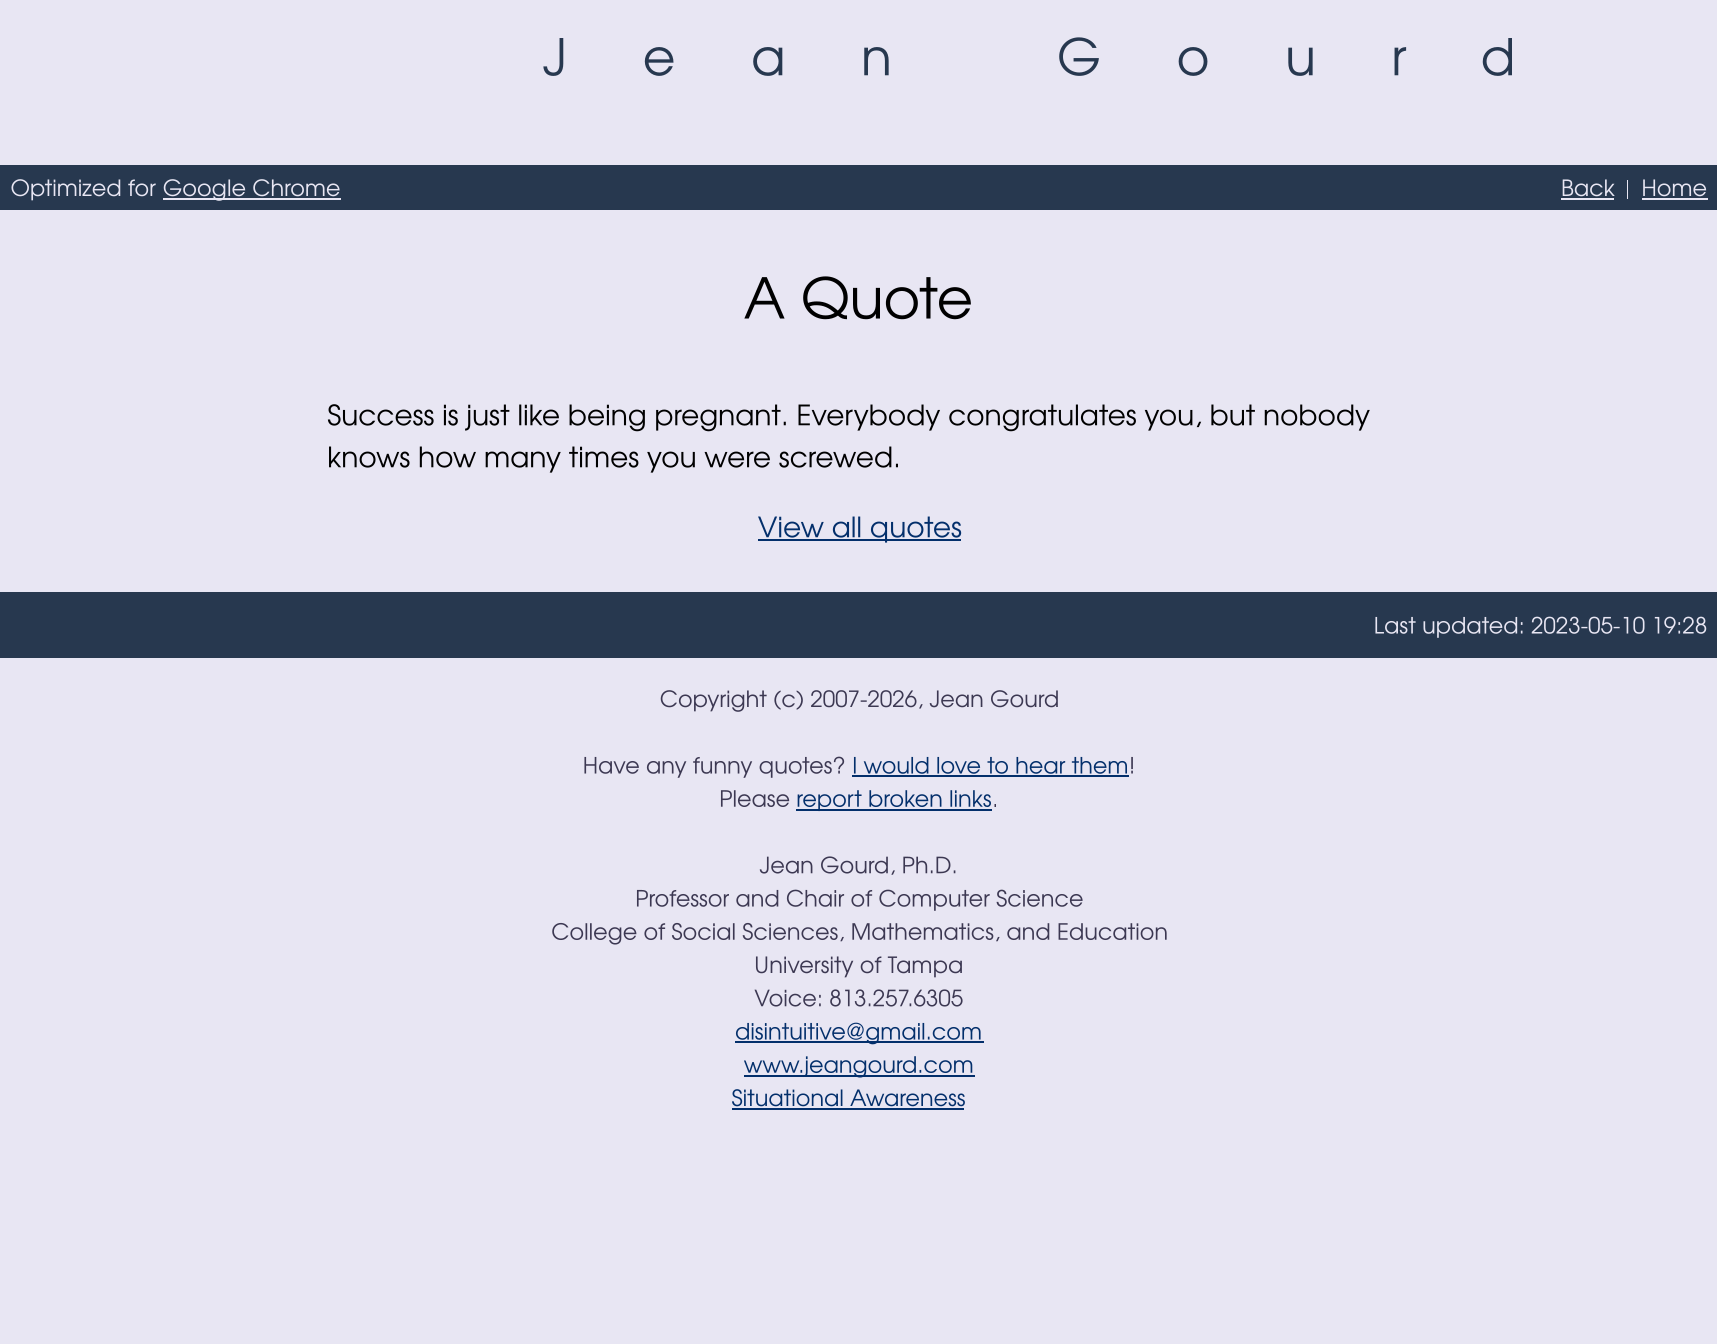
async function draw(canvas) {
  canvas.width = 1717
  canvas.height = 1344
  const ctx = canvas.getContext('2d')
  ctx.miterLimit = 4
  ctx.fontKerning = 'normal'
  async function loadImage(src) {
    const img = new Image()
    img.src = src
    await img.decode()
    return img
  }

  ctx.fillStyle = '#e8e6f3'
  ctx.fillRect(0, 0, 1717, 1344)
  ctx.drawImage(await loadImage('image0.png'), 543, 37, 969, 39)
  ctx.fillStyle = '#27384f'
  ctx.fillRect(0, 165, 1717, 45)
  ctx.drawImage(await loadImage('image1.png'), 11, 179, 145, 22)
  ctx.fillStyle = '#e8e6f3'
  ctx.fillRect(163, 198, 178, 2)
  ctx.drawImage(await loadImage('image2.png'), 163, 179, 177, 22)
  ctx.drawImage(await loadImage('image3.png'), 1562, 179, 53, 18)
  ctx.fillRect(1627, 180, 1, 19)
  ctx.drawImage(await loadImage('image4.png'), 1643, 179, 64, 18)
  ctx.fillRect(1561, 198, 53, 2)
  ctx.fillRect(1642, 198, 66, 2)
  ctx.drawImage(await loadImage('image5.png'), 744, 276, 227, 44)
  ctx.drawImage(await loadImage('image6.png'), 327, 404, 1043, 28)
  ctx.drawImage(await loadImage('image7.png'), 329, 446, 569, 27)
  ctx.fillStyle = '#032f6b'
  ctx.fillRect(758, 539, 203, 2)
  ctx.drawImage(await loadImage('image8.png'), 758, 516, 204, 27)
  ctx.fillStyle = '#27384f'
  ctx.fillRect(0, 592, 1717, 66)
  ctx.drawImage(await loadImage('image9.png'), 1375, 616, 332, 22)
  ctx.drawImage(await loadImage('image10.png'), 660, 690, 398, 22)
  ctx.drawImage(await loadImage('image11.png'), 584, 756, 261, 22)
  ctx.drawImage(await loadImage('image12.png'), 853, 756, 274, 18)
  ctx.drawImage(await loadImage('image13.png'), 1131, 756, 2, 18)
  ctx.fillStyle = '#032f6b'
  ctx.fillRect(852, 775, 277, 2)
  ctx.drawImage(await loadImage('image14.png'), 720, 790, 70, 17)
  ctx.fillRect(796, 809, 196, 2)
  ctx.drawImage(await loadImage('image15.png'), 797, 790, 194, 22)
  ctx.fillStyle = '#3c3852'
  ctx.beginPath()
  ctx.moveTo(996, 807)
  ctx.lineTo(996, 804)
  ctx.lineTo(994.5, 804)
  ctx.lineTo(994.5, 807)
  ctx.closePath()
  ctx.fill()
  ctx.drawImage(await loadImage('image16.png'), 759, 856, 197, 19)
  ctx.drawImage(await loadImage('image17.png'), 636, 889, 447, 22)
  ctx.drawImage(await loadImage('image18.png'), 552, 922, 615, 23)
  ctx.drawImage(await loadImage('image19.png'), 755, 956, 207, 22)
  ctx.drawImage(await loadImage('image20.png'), 754, 989, 209, 18)
  ctx.fillStyle = '#032f6b'
  ctx.fillRect(735, 1041, 249, 2)
  ctx.drawImage(await loadImage('image21.png'), 735, 1022, 246, 23)
  ctx.fillRect(744, 1075, 231, 2)
  ctx.drawImage(await loadImage('image22.png'), 744, 1056, 229, 22)
  ctx.drawImage(await loadImage('image23.png'), 732, 1089, 233, 18)
  ctx.fillRect(732, 1108, 232, 2)
}

draw(document.querySelector('canvas'))
